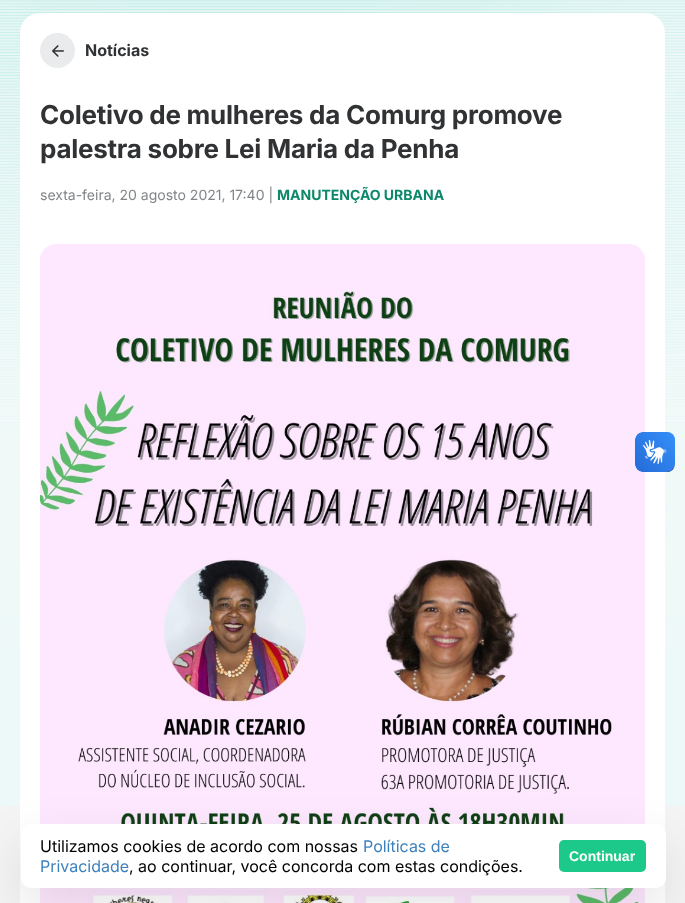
async function draw(canvas) {
  canvas.width = 685
  canvas.height = 903
  const ctx = canvas.getContext('2d')
  ctx.miterLimit = 4
  ctx.fontKerning = 'normal'
  async function loadImage(src) {
    const img = new Image()
    img.src = src
    await img.decode()
    return img
  }

  ctx.fillStyle = '#f4f4f5'
  ctx.fillRect(0, 0, 685, 903)
  ctx.drawImage(await loadImage('image0.png'), 0, 0, 685, 806)
  ctx.fillStyle = '#fff'
  ctx.beginPath()
  ctx.roundRect(20, 13, 645, 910, 20)
  ctx.fill()
  ctx.fillStyle = '#eaebed'
  ctx.beginPath()
  ctx.arc(57.5, 50.5, 17.5, 0, 2 * Math.PI)
  ctx.fill()
  ctx.drawImage(await loadImage('image1.png'), 52, 45, 12, 12)
  ctx.font = 'bold 16px Inter'
  ctx.fillStyle = '#303234'
  ctx.fillText('Notícias', 85, 56)
  ctx.letterSpacing = '-0.25px'
  ctx.font = 'bold 26px Inter'
  ctx.fillText('Coletivo de mulheres da Comurg promove', 40, 124)
  ctx.fillText('palestra sobre Lei Maria da Penha', 40, 158)
  ctx.letterSpacing = '0px'
  ctx.font = '14px Inter'
  ctx.fillStyle = '#828588'
  ctx.fillText('sexta-feira, 20 agosto 2021, 17:40 |', 40, 200)
  ctx.font = 'bold 14px Inter'
  ctx.fillStyle = '#0c886a'
  ctx.fillText('MANUTENÇÃO URBANA', 277, 200)
  ctx.drawImage(await loadImage('image2.png'), 40, 244, 605, 659)
  ctx.drawImage(await loadImage('image3.png'), 635, 432, 40, 40)
  ctx.drawImage(await loadImage('image4.png'), 635, 432, 40, 40)
  ctx.fillStyle = '#0000001a'
  ctx.filter = 'blur(25px)'
  ctx.beginPath()
  ctx.roundRect(21, 844, 645, 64, 10)
  ctx.fill()
  ctx.filter = 'none'
  ctx.fillStyle = '#fff'
  ctx.beginPath()
  ctx.roundRect(21, 824, 645, 64, 10)
  ctx.fill()
  ctx.font = '16px Inter'
  ctx.fillStyle = '#000'
  ctx.fillText('Utilizamos cookies de acordo com nossas', 40, 852)
  ctx.fillStyle = '#3c80bc'
  ctx.fillText('Políticas de', 363, 852)
  ctx.fillText('Privacidade', 40, 872)
  ctx.fillStyle = '#000'
  ctx.fillText(', ao continuar, você concorda com estas condições.', 129, 872)
  ctx.fillStyle = '#1dc98a'
  ctx.beginPath()
  ctx.roundRect(559, 840, 87, 32, 5)
  ctx.fill()
  ctx.font = 'bold 14px Liberation Sans'
  ctx.fillStyle = '#fff'
  ctx.fillText('Continuar', 569, 861)
}

draw(document.querySelector('canvas'))
